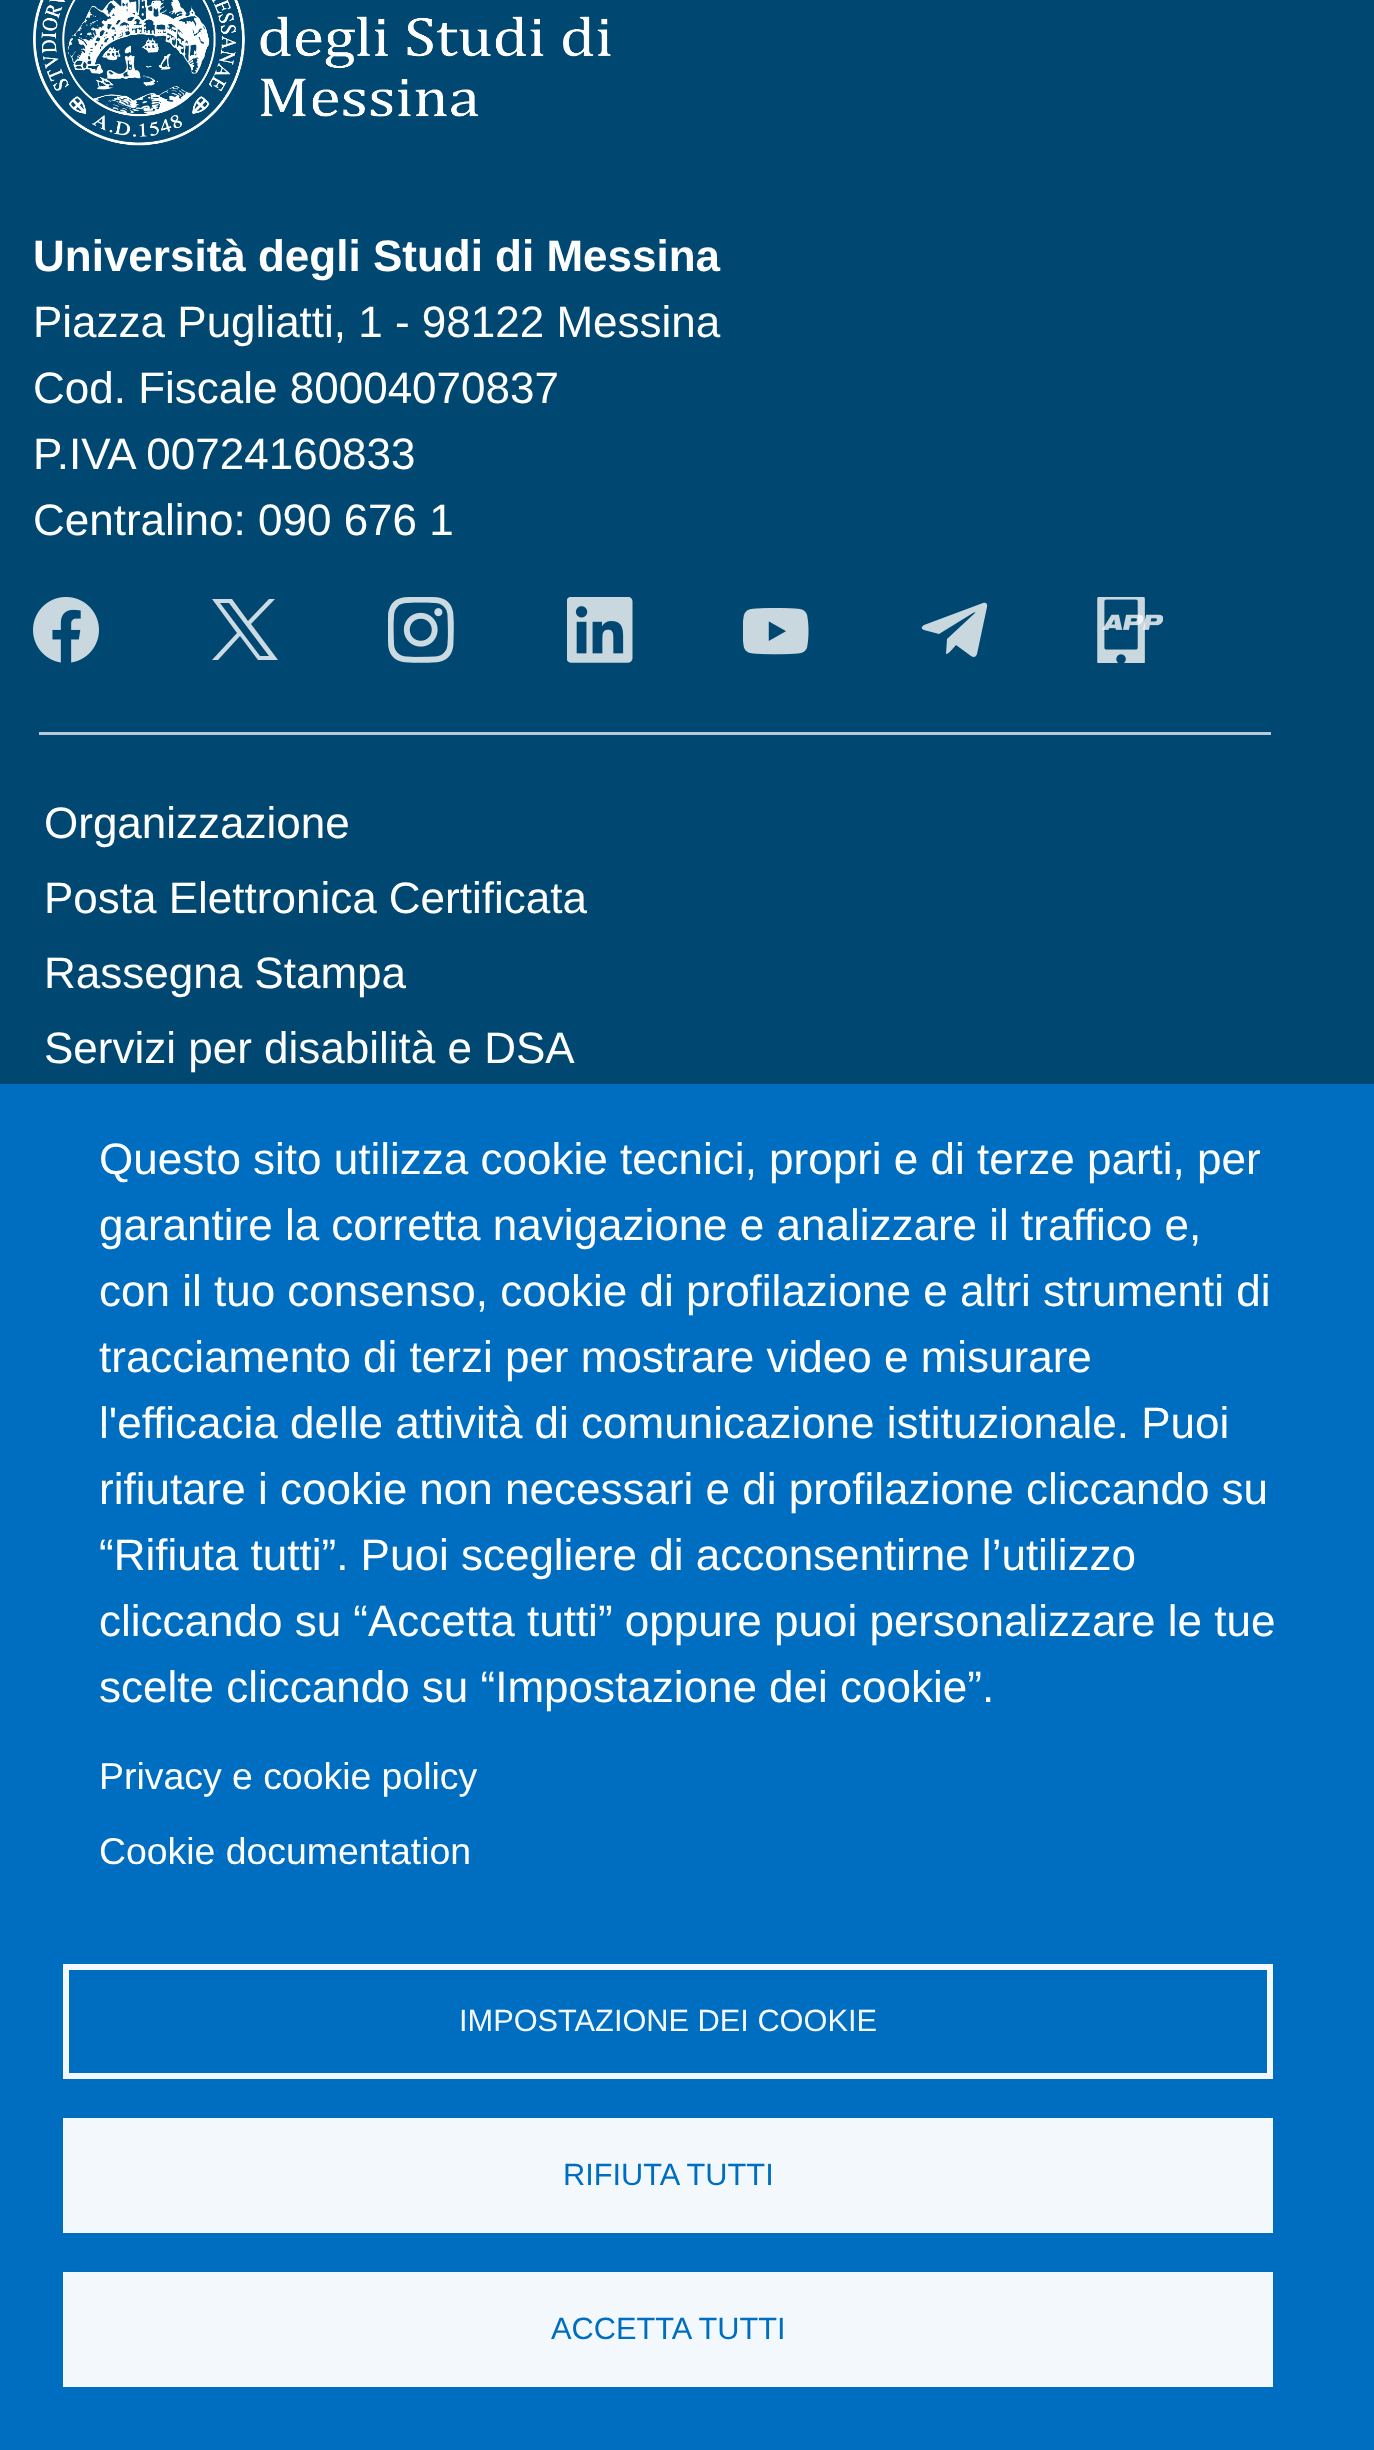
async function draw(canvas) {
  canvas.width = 1374
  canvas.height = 2450
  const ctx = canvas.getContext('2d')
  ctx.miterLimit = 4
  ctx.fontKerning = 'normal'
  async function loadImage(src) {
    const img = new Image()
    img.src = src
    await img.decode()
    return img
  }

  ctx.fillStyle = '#004871'
  ctx.fillRect(0, 0, 1374, 2450)
  ctx.drawImage(await loadImage('image0.png'), 33, 0, 578, 146)
  ctx.font = 'bold 44px Liberation Sans'
  ctx.fillStyle = '#fff'
  ctx.fillText('Università degli Studi di Messina', 33, 271)
  ctx.font = '44px Liberation Sans'
  ctx.fillText('Piazza Pugliatti, 1 - 98122 Messina', 33, 337)
  ctx.fillText('Cod. Fiscale 80004070837', 33, 403)
  ctx.fillText('P.IVA 00724160833', 33, 469)
  ctx.fillText('Centralino: 090 676 1', 33, 535)
  ctx.drawImage(await loadImage('image1.png'), 33, 597, 66, 66)
  ctx.fillStyle = '#ccdae3'
  ctx.beginPath()
  ctx.moveTo(212, 599)
  ctx.lineTo(237, 633)
  ctx.lineTo(212, 660)
  ctx.lineTo(218, 660)
  ctx.lineTo(240, 636)
  ctx.lineTo(258, 660)
  ctx.lineTo(278, 660)
  ctx.lineTo(251, 624)
  ctx.lineTo(275, 599)
  ctx.lineTo(269, 599)
  ctx.lineTo(248, 621)
  ctx.lineTo(232, 599)
  ctx.closePath()
  ctx.moveTo(220, 603)
  ctx.lineTo(229, 603)
  ctx.lineTo(269, 656)
  ctx.lineTo(260, 656)
  ctx.closePath()
  ctx.fill()
  ctx.drawImage(await loadImage('image2.png'), 388, 597, 66, 66)
  ctx.drawImage(await loadImage('image3.png'), 567, 597, 66, 66)
  ctx.drawImage(await loadImage('image4.png'), 743, 608, 66, 47)
  ctx.fillStyle = '#c9d7df'
  ctx.beginPath()
  ctx.moveTo(987, 607)
  ctx.lineTo(977, 654)
  ctx.bezierCurveTo(976, 657, 974, 658, 971, 656)
  ctx.lineTo(956, 645)
  ctx.bezierCurveTo(954, 647, 949, 654, 946, 654)
  ctx.lineTo(947, 639)
  ctx.lineTo(975, 613)
  ctx.bezierCurveTo(976, 612, 975, 612, 973, 613)
  ctx.lineTo(939, 634)
  ctx.lineTo(924, 630)
  ctx.bezierCurveTo(921, 629, 921, 627, 924, 625)
  ctx.lineTo(983, 603)
  ctx.bezierCurveTo(985, 602, 988, 603, 987, 607)
  ctx.closePath()
  ctx.fill()
  ctx.drawImage(await loadImage('image5.png'), 1097, 597, 66, 66)
  ctx.fillStyle = '#b5cad6'
  ctx.fillRect(39, 732, 1232, 3)
  ctx.fillStyle = '#fff'
  ctx.fillText('Organizzazione', 44, 838)
  ctx.fillText('Posta Elettronica Certificata', 44, 913)
  ctx.fillText('Rassegna Stampa', 44, 988)
  ctx.fillText('Servizi per disabilità e DSA', 44, 1063)
  ctx.fillStyle = '#006ec0'
  ctx.fillRect(0, 1084, 1374, 1366)
  ctx.fillStyle = '#fff'
  ctx.fillText('Questo sito utilizza cookie tecnici, propri e di terze parti, per', 99, 1174)
  ctx.fillText('garantire la corretta navigazione e analizzare il traffico e,', 99, 1240)
  ctx.fillText('con il tuo consenso, cookie di profilazione e altri strumenti di', 99, 1306)
  ctx.fillText('tracciamento di terzi per mostrare video e misurare', 99, 1372)
  ctx.fillText('l\'efficacia delle attività di comunicazione istituzionale. Puoi', 99, 1438)
  ctx.fillText('rifiutare i cookie non necessari e di profilazione cliccando su', 99, 1504)
  ctx.fillText('“Rifiuta tutti”. Puoi scegliere di acconsentirne l’utilizzo', 99, 1570)
  ctx.fillText('cliccando su “Accetta tutti” oppure puoi personalizzare le tue', 99, 1636)
  ctx.fillText('scelte cliccando su “Impostazione dei cookie”.', 99, 1702)
  ctx.font = '37.4px Liberation Sans'
  ctx.fillText('Privacy e cookie policy', 99, 1789)
  ctx.fillText('Cookie documentation', 99, 1864)
  ctx.strokeStyle = '#f2f8fc'
  ctx.lineWidth = 6
  ctx.strokeRect(66, 1967, 1204, 109)
  ctx.font = '30.75px Liberation Sans'
  ctx.fillStyle = '#f2f8fc'
  ctx.fillText('IMPOSTAZIONE DEI COOKIE', 459, 2031)
  ctx.fillRect(63, 2118, 1210, 115)
  ctx.fillStyle = '#006ec0'
  ctx.fillText('RIFIUTA TUTTI', 563, 2185)
  ctx.fillStyle = '#f2f8fc'
  ctx.fillRect(63, 2272, 1210, 115)
  ctx.fillStyle = '#006ec0'
  ctx.fillText('ACCETTA TUTTI', 551, 2339)
}

draw(document.querySelector('canvas'))
